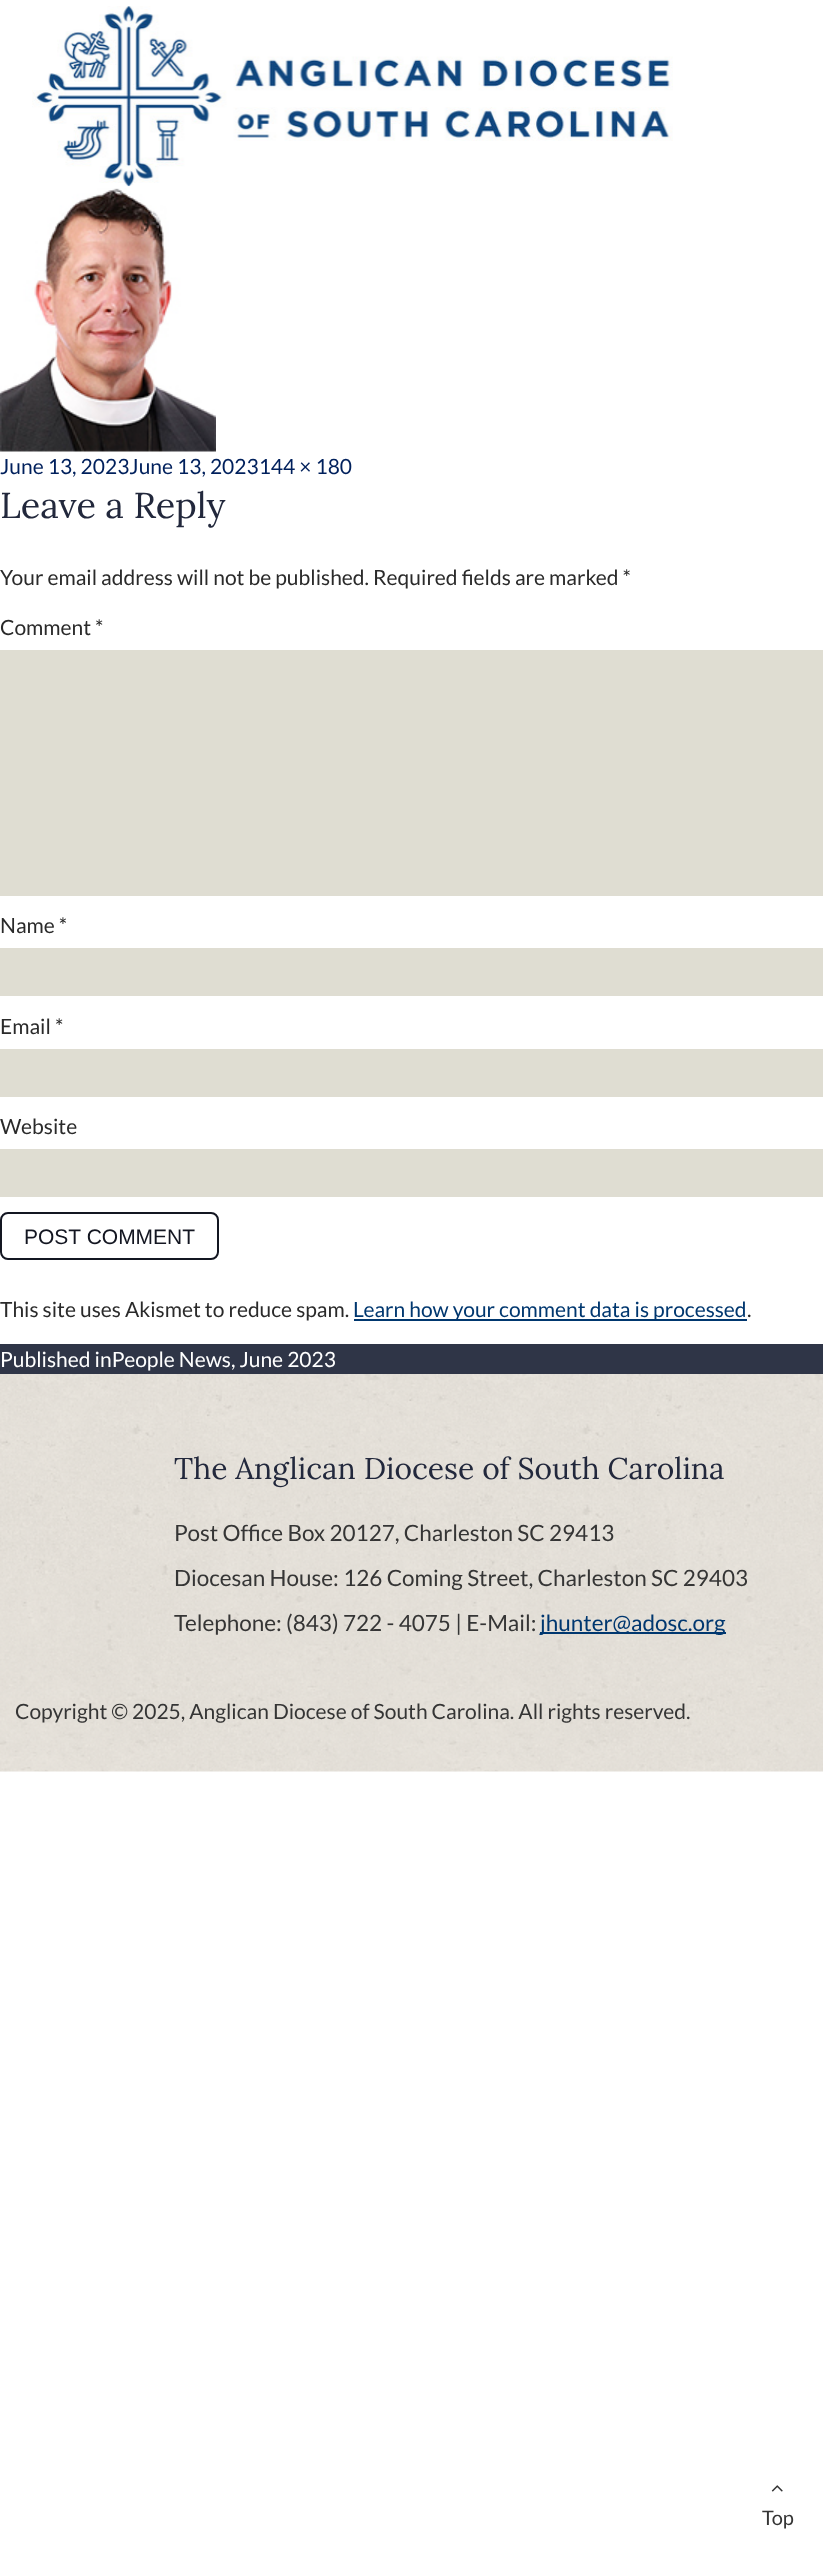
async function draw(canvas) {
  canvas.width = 823
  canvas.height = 2556
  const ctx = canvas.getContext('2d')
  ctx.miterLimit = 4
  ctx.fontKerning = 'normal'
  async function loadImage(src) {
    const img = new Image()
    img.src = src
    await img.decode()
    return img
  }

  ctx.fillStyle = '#fff'
  ctx.fillRect(0, 0, 823, 2556)
  ctx.drawImage(await loadImage('image0.png'), 32, 6, 641, 181)
  ctx.drawImage(await loadImage('image1.png'), 0, 188, 216, 264)
  ctx.font = '21px Lato'
  ctx.fillStyle = '#00205c'
  ctx.fillText('June 13, 2023June 13, 2023144 × 180', 0, 474)
  ctx.font = '36px Lora'
  ctx.fillStyle = '#22283c'
  ctx.fillText('Leave a Reply', 0, 518)
  ctx.font = '21px Lato'
  ctx.fillStyle = '#2a2a2a'
  ctx.fillText('Your email address will not be published. Required fields are marked *', 0, 585)
  ctx.fillText('Comment *', 0, 635)
  ctx.fillStyle = '#dfddd2'
  ctx.fillRect(0, 650, 823, 246)
  ctx.fillStyle = '#2a2a2a'
  ctx.fillText('Name *', 0, 933)
  ctx.fillStyle = '#dfddd2'
  ctx.fillRect(0, 948, 823, 48)
  ctx.fillStyle = '#2a2a2a'
  ctx.fillText('Email *', 0, 1034)
  ctx.fillStyle = '#dfddd2'
  ctx.fillRect(0, 1049, 823, 48)
  ctx.fillStyle = '#2a2a2a'
  ctx.fillText('Website', 0, 1134)
  ctx.fillStyle = '#dfddd2'
  ctx.fillRect(0, 1149, 823, 48)
  ctx.beginPath()
  ctx.roundRect(1, 1213, 217, 46, 7)
  ctx.strokeStyle = '#131621'
  ctx.lineWidth = 2
  ctx.stroke()
  ctx.font = '21px Liberation Sans'
  ctx.fillStyle = '#131621'
  ctx.fillText('POST COMMENT', 24, 1244)
  ctx.font = '21px Lato'
  ctx.fillStyle = '#2a2a2a'
  ctx.fillText('This site uses Akismet to reduce spam.', 0, 1317)
  ctx.fillStyle = '#00376f'
  ctx.fillRect(354, 1319, 393, 2)
  ctx.fillText('Learn how your comment data is processed', 353, 1317)
  ctx.fillStyle = '#2a2a2a'
  ctx.fillText('.', 747, 1317)
  ctx.fillStyle = '#2f3547'
  ctx.fillRect(0, 1344, 823, 30)
  ctx.fillStyle = '#fff'
  ctx.fillText('Published inPeople News, June 2023', 0, 1367)
  ctx.drawImage(await loadImage('image2.png'), 0, 1374, 823, 398)
  ctx.font = '30px Lora'
  ctx.fillStyle = '#22283c'
  ctx.fillText('The Anglican Diocese of South Carolina', 174, 1479)
  ctx.font = '22.5px Lato'
  ctx.fillStyle = '#353535'
  ctx.fillText('Post Office Box 20127, Charleston SC 29413', 174, 1541)
  ctx.fillText('Diocesan House: 126 Coming Street, Charleston SC 29403', 174, 1586)
  ctx.fillText('Telephone: (843) 722 - 4075 | E-Mail:', 174, 1631)
  ctx.fillStyle = '#00376f'
  ctx.fillRect(540, 1632, 186, 2)
  ctx.fillText('jhunter@adosc.org', 540, 1631)
  ctx.font = '21px Lato'
  ctx.fillStyle = '#353535'
  ctx.fillText('Copyright © 2025, Anglican Diocese of South Carolina. All rights reserved.', 15, 1719)
  ctx.drawImage(await loadImage('image3.png'), 771, 2485, 12, 7)
  ctx.font = '20px Lato'
  ctx.fillText('Top', 762, 2525)
}

draw(document.querySelector('canvas'))
